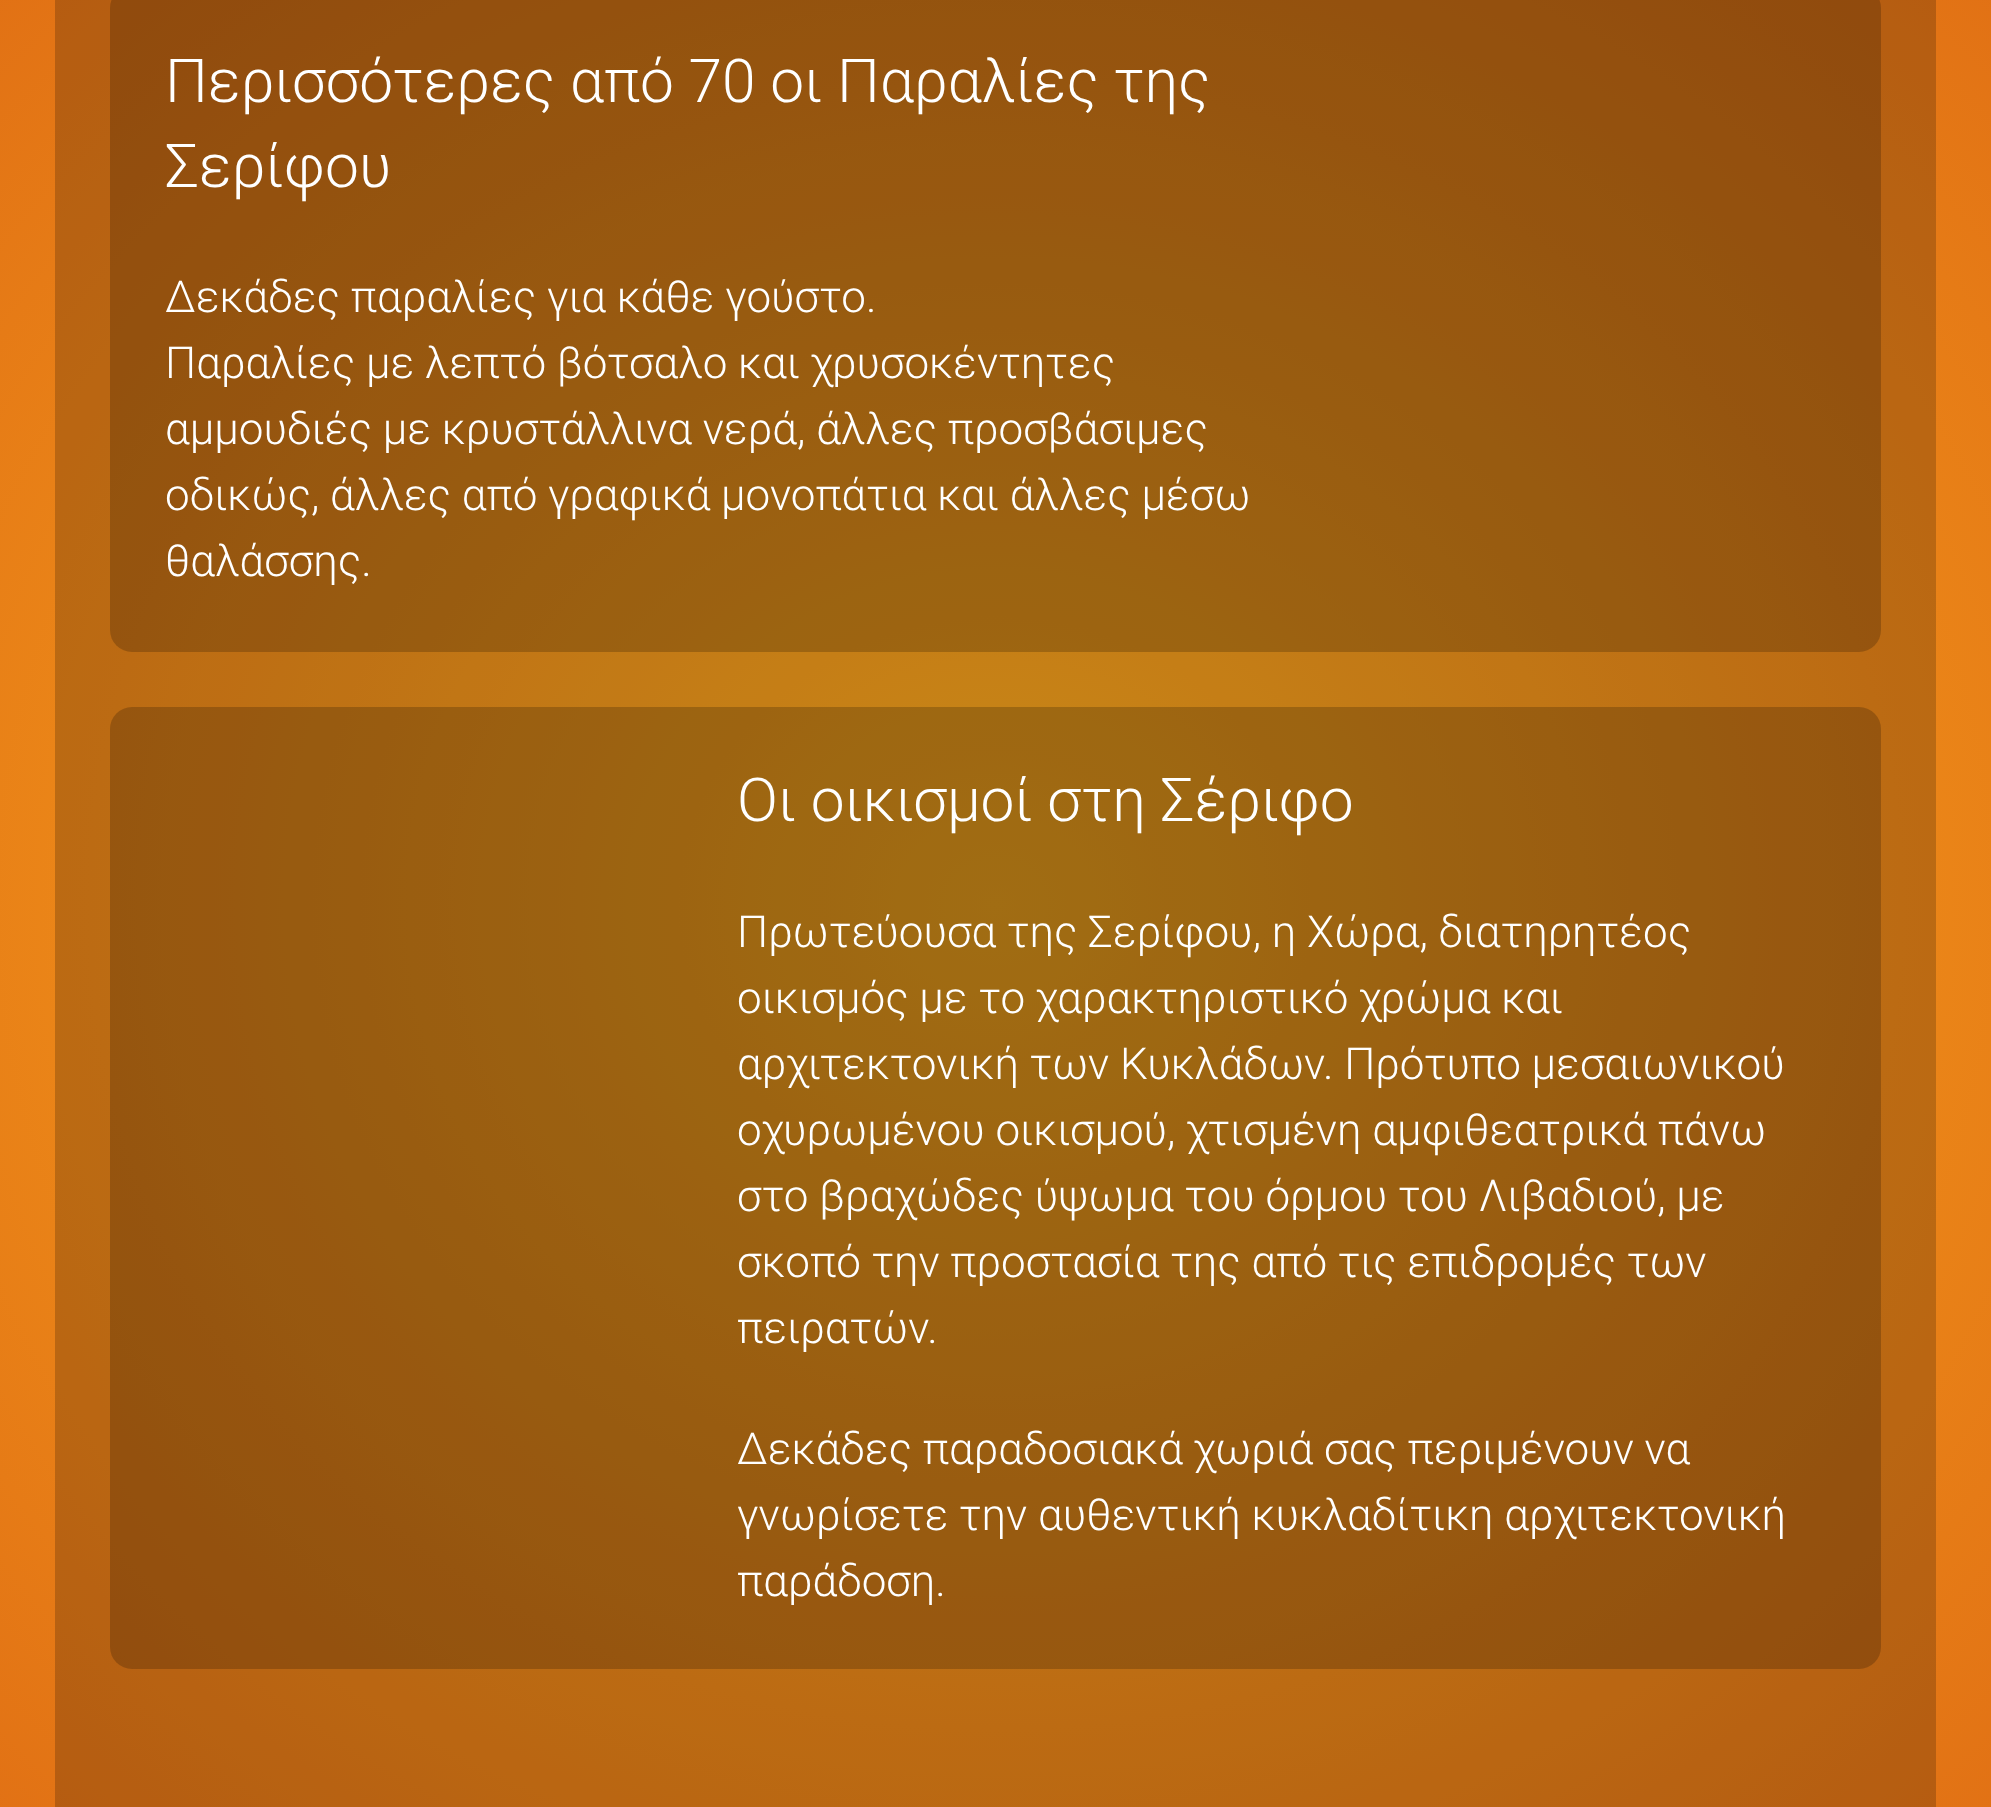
async function draw(canvas) {
  canvas.width = 1991
  canvas.height = 1807
  const ctx = canvas.getContext('2d')
  ctx.miterLimit = 4
  ctx.fontKerning = 'normal'
  async function loadImage(src) {
    const img = new Image()
    img.src = src
    await img.decode()
    return img
  }

  ctx.fillStyle = '#fff'
  ctx.fillRect(0, 0, 1991, 1807)
  ctx.drawImage(await loadImage('image0.png'), 0, 0, 1991, 1807)
  ctx.fillStyle = '#00000033'
  ctx.beginPath()
  ctx.roundRect(110, -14, 1771, 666, 22)
  ctx.fill()
  ctx.font = '300 60.5px Roboto'
  ctx.fillStyle = '#fff'
  ctx.fillText('Περισσότερες από 70 οι Παραλίες της', 165, 102)
  ctx.fillText('Σερίφου', 165, 187)
  ctx.font = '300 44px Roboto'
  ctx.fillText('Δεκάδες παραλίες για κάθε γούστο.', 165, 312)
  ctx.fillText('Παραλίες με λεπτό βότσαλο και χρυσοκέντητες', 165, 378)
  ctx.fillText('αμμουδιές με κρυστάλλινα νερά, άλλες προσβάσιμες', 165, 444)
  ctx.fillText('οδικώς, άλλες από γραφικά μονοπάτια και άλλες μέσω', 165, 510)
  ctx.fillText('θαλάσσης.', 165, 576)
  ctx.fillStyle = '#00000033'
  ctx.beginPath()
  ctx.roundRect(110, 707, 1771, 962, 22)
  ctx.fill()
  ctx.font = '300 60.5px Roboto'
  ctx.fillStyle = '#fff'
  ctx.fillText('Οι οικισμοί στη Σέριφο', 737, 821)
  ctx.font = '300 44px Roboto'
  ctx.fillText('Πρωτεύουσα της Σερίφου, η Χώρα, διατηρητέος', 737, 947)
  ctx.fillText('οικισμός με το χαρακτηριστικό χρώμα και', 737, 1013)
  ctx.fillText('αρχιτεκτονική των Κυκλάδων. Πρότυπο μεσαιωνικού', 737, 1079)
  ctx.fillText('οχυρωμένου οικισμού, χτισμένη αμφιθεατρικά πάνω', 737, 1145)
  ctx.fillText('στο βραχώδες ύψωμα του όρμου του Λιβαδιού, με', 737, 1211)
  ctx.fillText('σκοπό την προστασία της από τις επιδρομές των', 737, 1277)
  ctx.fillText('πειρατών.', 737, 1343)
  ctx.fillText('Δεκάδες παραδοσιακά χωριά σας περιμένουν να', 737, 1464)
  ctx.fillText('γνωρίσετε την αυθεντική κυκλαδίτικη αρχιτεκτονική', 737, 1530)
  ctx.fillText('παράδοση.', 737, 1596)
}

draw(document.querySelector('canvas'))
